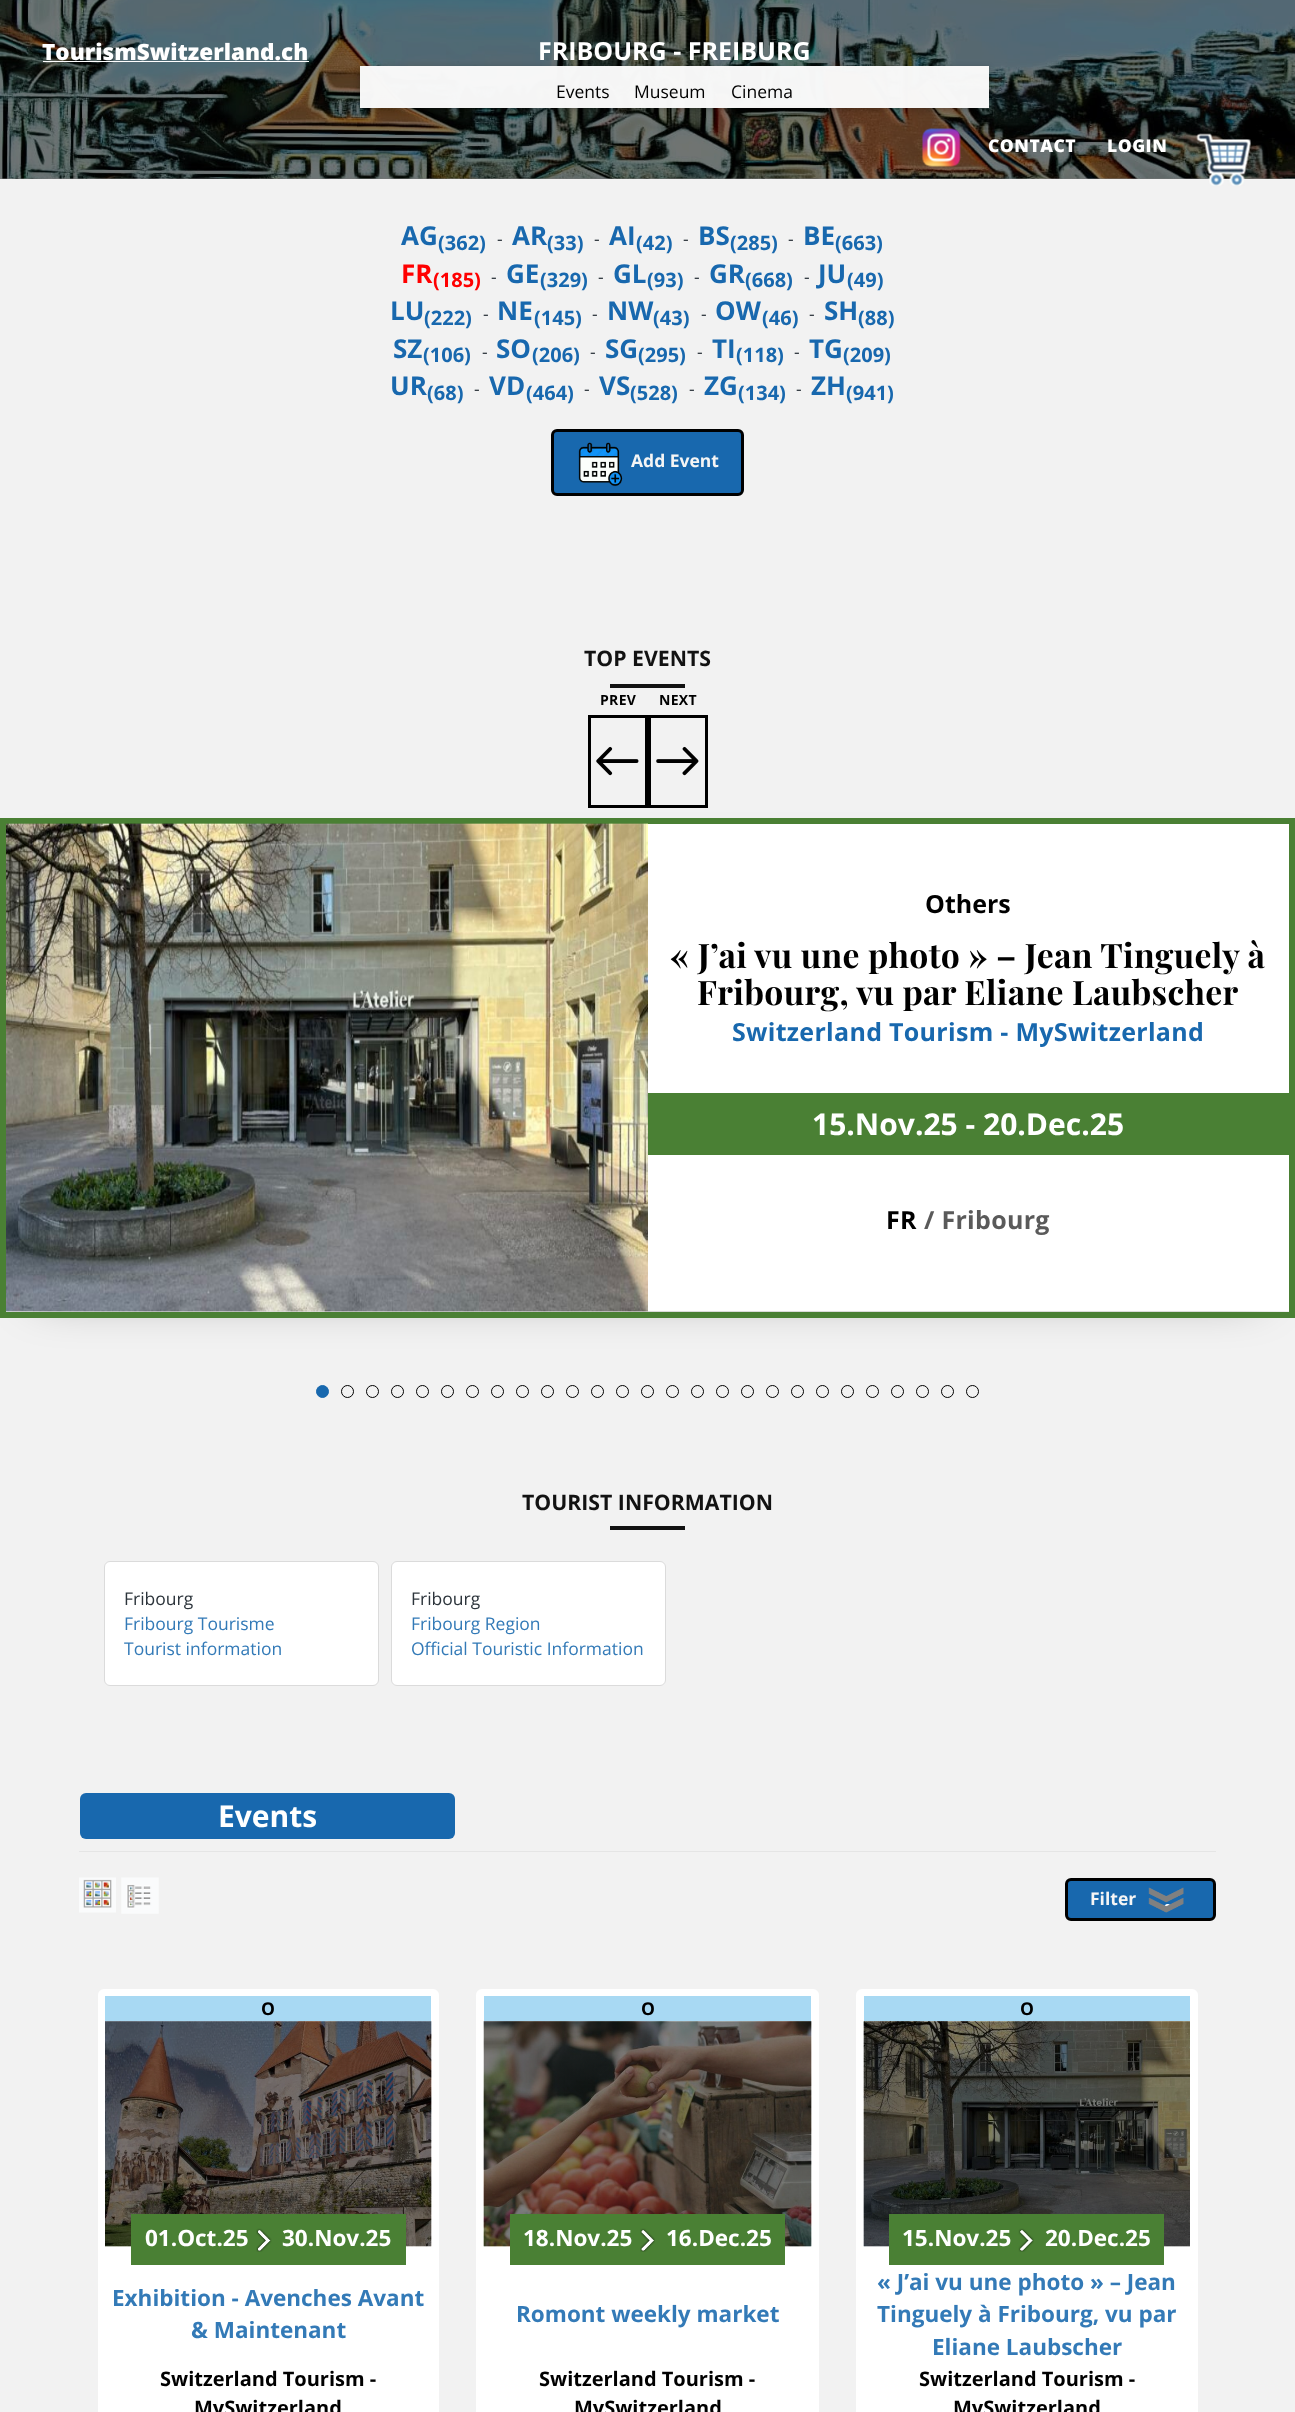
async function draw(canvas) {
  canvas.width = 1295
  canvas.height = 2412
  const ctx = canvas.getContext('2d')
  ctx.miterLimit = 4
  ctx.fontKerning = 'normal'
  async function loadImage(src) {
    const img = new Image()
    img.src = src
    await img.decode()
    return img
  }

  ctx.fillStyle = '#f2f2f2'
  ctx.fillRect(0, 0, 1295, 2412)
  ctx.fillStyle = '#797979'
  ctx.fillRect(0, 178, 1295, 1)
  ctx.drawImage(await loadImage('image0.png'), 0, 0, 1295, 179)
  ctx.font = '800 22.5px Open Sans'
  ctx.fillStyle = '#fff'
  ctx.fillText('TourismSwitzerland.ch', 42, 60)
  ctx.fillRect(43, 61, 266, 1)
  ctx.save()
  ctx.beginPath()
  ctx.moveTo(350, 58)
  ctx.lineTo(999, 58)
  ctx.lineTo(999, 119)
  ctx.lineTo(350, 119)
  ctx.closePath()
  ctx.moveTo(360, 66)
  ctx.lineTo(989, 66)
  ctx.lineTo(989, 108)
  ctx.lineTo(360, 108)
  ctx.closePath()
  ctx.clip('evenodd')
  ctx.fillStyle = '#00000040'
  ctx.filter = 'blur(3px)'
  ctx.beginPath()
  ctx.rect(360, 68, 629, 41)
  ctx.fill()
  ctx.filter = 'none'
  ctx.restore()
  ctx.font = 'bold 25px Open Sans'
  ctx.fillText('FRIBOURG - FREIBURG', 538, 60)
  ctx.fillStyle = '#fafafafa'
  ctx.fillRect(360, 66, 629, 42)
  ctx.font = '17.5px Open Sans'
  ctx.fillStyle = '#000'
  ctx.fillText('Events', 556, 98)
  ctx.fillText('Museum', 634, 98)
  ctx.fillText('Cinema', 731, 98)
  ctx.drawImage(await loadImage('image1.png'), 922, 128, 39, 39)
  ctx.letterSpacing = '0.5px'
  ctx.font = '800 17.5px Open Sans'
  ctx.fillStyle = '#fff'
  ctx.fillText('CONTACT', 988, 152)
  ctx.fillText('LOGIN', 1107, 152)
  ctx.drawImage(await loadImage('image2.png'), 1196, 133, 55, 53)
  ctx.letterSpacing = '0px'
  ctx.font = 'bold 26px Open Sans'
  ctx.fillStyle = '#1868ae'
  ctx.fillText('AG', 401, 245)
  ctx.font = 'bold 20px Open Sans'
  ctx.fillText('(362)', 438, 250)
  ctx.font = '17.5px Open Sans'
  ctx.fillStyle = '#2c343b'
  ctx.fillText('-', 497, 245)
  ctx.font = 'bold 26px Open Sans'
  ctx.fillStyle = '#1868ae'
  ctx.fillText('AR', 512, 245)
  ctx.font = 'bold 20px Open Sans'
  ctx.fillText('(33)', 547, 250)
  ctx.font = '17.5px Open Sans'
  ctx.fillStyle = '#2c343b'
  ctx.fillText('-', 594, 245)
  ctx.font = 'bold 26px Open Sans'
  ctx.fillStyle = '#1868ae'
  ctx.fillText('AI', 609, 245)
  ctx.font = 'bold 20px Open Sans'
  ctx.fillText('(42)', 636, 250)
  ctx.font = '17.5px Open Sans'
  ctx.fillStyle = '#2c343b'
  ctx.fillText('-', 683, 245)
  ctx.font = 'bold 26px Open Sans'
  ctx.fillStyle = '#1868ae'
  ctx.fillText('BS', 698, 245)
  ctx.font = 'bold 20px Open Sans'
  ctx.fillText('(285)', 730, 250)
  ctx.font = '17.5px Open Sans'
  ctx.fillStyle = '#2c343b'
  ctx.fillText('-', 788, 245)
  ctx.font = 'bold 26px Open Sans'
  ctx.fillStyle = '#1868ae'
  ctx.fillText('BE', 803, 245)
  ctx.font = 'bold 20px Open Sans'
  ctx.fillText('(663)', 835, 250)
  ctx.font = 'bold 26px Open Sans'
  ctx.fillStyle = '#f00'
  ctx.fillText('FR', 401, 283)
  ctx.font = 'bold 20px Open Sans'
  ctx.fillText('(185)', 433, 287)
  ctx.font = '17.5px Open Sans'
  ctx.fillStyle = '#2c343b'
  ctx.fillText('-', 491, 283)
  ctx.font = 'bold 26px Open Sans'
  ctx.fillStyle = '#1868ae'
  ctx.fillText('GE', 506, 283)
  ctx.font = 'bold 20px Open Sans'
  ctx.fillText('(329)', 540, 287)
  ctx.font = '17.5px Open Sans'
  ctx.fillStyle = '#2c343b'
  ctx.fillText('-', 598, 283)
  ctx.font = 'bold 26px Open Sans'
  ctx.fillStyle = '#1868ae'
  ctx.fillText('GL', 613, 283)
  ctx.font = 'bold 20px Open Sans'
  ctx.fillText('(93)', 647, 287)
  ctx.font = '17.5px Open Sans'
  ctx.fillStyle = '#2c343b'
  ctx.fillText('-', 694, 283)
  ctx.font = 'bold 26px Open Sans'
  ctx.fillStyle = '#1868ae'
  ctx.fillText('GR', 709, 283)
  ctx.font = 'bold 20px Open Sans'
  ctx.fillText('(668)', 745, 287)
  ctx.font = '17.5px Open Sans'
  ctx.fillStyle = '#2c343b'
  ctx.fillText('-', 804, 283)
  ctx.font = 'bold 26px Open Sans'
  ctx.fillStyle = '#1868ae'
  ctx.fillText('JU', 818, 283)
  ctx.font = 'bold 20px Open Sans'
  ctx.fillText('(49)', 847, 287)
  ctx.font = 'bold 26px Open Sans'
  ctx.fillText('LU', 390, 320)
  ctx.font = 'bold 20px Open Sans'
  ctx.fillText('(222)', 424, 325)
  ctx.font = '17.5px Open Sans'
  ctx.fillStyle = '#2c343b'
  ctx.fillText('-', 483, 320)
  ctx.font = 'bold 26px Open Sans'
  ctx.fillStyle = '#1868ae'
  ctx.fillText('NE', 497, 320)
  ctx.font = 'bold 20px Open Sans'
  ctx.fillText('(145)', 534, 325)
  ctx.font = '17.5px Open Sans'
  ctx.fillStyle = '#2c343b'
  ctx.fillText('-', 592, 320)
  ctx.font = 'bold 26px Open Sans'
  ctx.fillStyle = '#1868ae'
  ctx.fillText('NW', 607, 320)
  ctx.font = 'bold 20px Open Sans'
  ctx.fillText('(43)', 653, 325)
  ctx.font = '17.5px Open Sans'
  ctx.fillStyle = '#2c343b'
  ctx.fillText('-', 701, 320)
  ctx.font = 'bold 26px Open Sans'
  ctx.fillStyle = '#1868ae'
  ctx.fillText('OW', 715, 320)
  ctx.font = 'bold 20px Open Sans'
  ctx.fillText('(46)', 762, 325)
  ctx.font = '17.5px Open Sans'
  ctx.fillStyle = '#2c343b'
  ctx.fillText('-', 809, 320)
  ctx.font = 'bold 26px Open Sans'
  ctx.fillStyle = '#1868ae'
  ctx.fillText('SH', 824, 320)
  ctx.font = 'bold 20px Open Sans'
  ctx.fillText('(88)', 858, 325)
  ctx.font = 'bold 26px Open Sans'
  ctx.fillText('SZ', 393, 358)
  ctx.font = 'bold 20px Open Sans'
  ctx.fillText('(106)', 423, 362)
  ctx.font = '17.5px Open Sans'
  ctx.fillStyle = '#2c343b'
  ctx.fillText('-', 482, 358)
  ctx.font = 'bold 26px Open Sans'
  ctx.fillStyle = '#1868ae'
  ctx.fillText('SO', 496, 358)
  ctx.font = 'bold 20px Open Sans'
  ctx.fillText('(206)', 532, 362)
  ctx.font = '17.5px Open Sans'
  ctx.fillStyle = '#2c343b'
  ctx.fillText('-', 590, 358)
  ctx.font = 'bold 26px Open Sans'
  ctx.fillStyle = '#1868ae'
  ctx.fillText('SG', 605, 358)
  ctx.font = 'bold 20px Open Sans'
  ctx.fillText('(295)', 638, 362)
  ctx.font = '17.5px Open Sans'
  ctx.fillStyle = '#2c343b'
  ctx.fillText('-', 697, 358)
  ctx.font = 'bold 26px Open Sans'
  ctx.fillStyle = '#1868ae'
  ctx.fillText('TI', 712, 358)
  ctx.font = 'bold 20px Open Sans'
  ctx.fillText('(118)', 736, 362)
  ctx.font = '17.5px Open Sans'
  ctx.fillStyle = '#2c343b'
  ctx.fillText('-', 794, 358)
  ctx.font = 'bold 26px Open Sans'
  ctx.fillStyle = '#1868ae'
  ctx.fillText('TG', 809, 358)
  ctx.font = 'bold 20px Open Sans'
  ctx.fillText('(209)', 843, 362)
  ctx.font = 'bold 26px Open Sans'
  ctx.fillText('UR', 390, 395)
  ctx.font = 'bold 20px Open Sans'
  ctx.fillText('(68)', 427, 400)
  ctx.font = '17.5px Open Sans'
  ctx.fillStyle = '#2c343b'
  ctx.fillText('-', 474, 395)
  ctx.font = 'bold 26px Open Sans'
  ctx.fillStyle = '#1868ae'
  ctx.fillText('VD', 489, 395)
  ctx.font = 'bold 20px Open Sans'
  ctx.fillText('(464)', 526, 400)
  ctx.font = '17.5px Open Sans'
  ctx.fillStyle = '#2c343b'
  ctx.fillText('-', 584, 395)
  ctx.font = 'bold 26px Open Sans'
  ctx.fillStyle = '#1868ae'
  ctx.fillText('VS', 599, 395)
  ctx.font = 'bold 20px Open Sans'
  ctx.fillText('(528)', 630, 400)
  ctx.font = '17.5px Open Sans'
  ctx.fillStyle = '#2c343b'
  ctx.fillText('-', 689, 395)
  ctx.font = 'bold 26px Open Sans'
  ctx.fillStyle = '#1868ae'
  ctx.fillText('ZG', 704, 395)
  ctx.font = 'bold 20px Open Sans'
  ctx.fillText('(134)', 738, 400)
  ctx.font = '17.5px Open Sans'
  ctx.fillStyle = '#2c343b'
  ctx.fillText('-', 796, 395)
  ctx.font = 'bold 26px Open Sans'
  ctx.fillStyle = '#1868ae'
  ctx.fillText('ZH', 811, 395)
  ctx.font = 'bold 20px Open Sans'
  ctx.fillText('(941)', 846, 400)
  ctx.beginPath()
  ctx.roundRect(552.5, 430.5, 190, 64, 4.5)
  ctx.fill()
  ctx.strokeStyle = '#000'
  ctx.lineWidth = 3
  ctx.stroke()
  ctx.drawImage(await loadImage('image3.png'), 578, 442, 45, 45)
  ctx.font = 'bold 17.5px Open Sans'
  ctx.fillStyle = '#f5f5f5'
  ctx.fillText('Add Event', 631, 467)
  ctx.font = 'bold 21.25px Open Sans'
  ctx.fillStyle = '#121212'
  ctx.fillText('TOP EVENTS', 584, 666)
  ctx.fillRect(610, 684, 75, 4)
  ctx.letterSpacing = '0.3px'
  ctx.font = 'bold 14px Open Sans'
  ctx.fillStyle = '#000'
  ctx.fillText('PREV', 600, 705)
  ctx.fillStyle = '#0000006b'
  ctx.filter = 'blur(25px)'
  ctx.beginPath()
  ctx.rect(38, 868, 1220, 425)
  ctx.fill()
  ctx.filter = 'none'
  ctx.strokeRect(589.5, 716.5, 57, 90)
  ctx.drawImage(await loadImage('image4.png'), 596, 746, 43, 30)
  ctx.fillStyle = '#000'
  ctx.fillText('NEXT', 659, 705)
  ctx.strokeRect(649.5, 716.5, 57, 90)
  ctx.drawImage(await loadImage('image5.png'), 656, 746, 43, 30)
  ctx.strokeStyle = '#4a8034'
  ctx.lineWidth = 6
  ctx.strokeRect(3, 821, 1289, 494)
  ctx.drawImage(await loadImage('image6.png'), 6, 823, 642, 489)
  ctx.fillStyle = '#fff'
  ctx.fillRect(648, 824, 641, 487)
  ctx.letterSpacing = '0px'
  ctx.font = 'bold 25px Open Sans'
  ctx.fillStyle = '#000'
  ctx.fillText('Others', 925, 913)
  ctx.letterSpacing = '0.3px'
  ctx.font = 'bold 33.75px Playfair Display'
  ctx.fillText('« J’ai vu une photo » – Jean Tinguely à', 670, 968)
  ctx.fillText('Fribourg, vu par Eliane Laubscher', 697, 1005)
  ctx.font = 'bold 25px Open Sans'
  ctx.fillStyle = '#1868ae'
  ctx.fillText('Switzerland Tourism - MySwitzerland', 732, 1041)
  ctx.fillStyle = '#4a8034'
  ctx.fillRect(648, 1093, 641, 62)
  ctx.letterSpacing = '0px'
  ctx.font = 'bold 30px Open Sans'
  ctx.fillStyle = '#fff'
  ctx.fillText('15.Nov.25 - 20.Dec.25', 812, 1135)
  ctx.letterSpacing = '0.3px'
  ctx.font = 'bold 25px Open Sans'
  ctx.fillStyle = '#000'
  ctx.fillText('FR', 886, 1229)
  ctx.fillStyle = '#5a5a5a'
  ctx.fillText('/ Fribourg', 924, 1229)
  ctx.fillStyle = '#1868ae'
  ctx.beginPath()
  ctx.arc(322.5, 1391.5, 6, 0, 2 * Math.PI)
  ctx.fill()
  ctx.strokeStyle = '#1868ae'
  ctx.lineWidth = 1
  ctx.stroke()
  ctx.beginPath()
  ctx.arc(347.5, 1391.5, 6, 0, 2 * Math.PI)
  ctx.strokeStyle = '#000'
  ctx.stroke()
  ctx.beginPath()
  ctx.arc(372.5, 1391.5, 6, 0, 2 * Math.PI)
  ctx.stroke()
  ctx.beginPath()
  ctx.arc(397.5, 1391.5, 6, 0, 2 * Math.PI)
  ctx.stroke()
  ctx.beginPath()
  ctx.arc(422.5, 1391.5, 6, 0, 2 * Math.PI)
  ctx.stroke()
  ctx.beginPath()
  ctx.arc(447.5, 1391.5, 6, 0, 2 * Math.PI)
  ctx.stroke()
  ctx.beginPath()
  ctx.arc(472.5, 1391.5, 6, 0, 2 * Math.PI)
  ctx.stroke()
  ctx.beginPath()
  ctx.arc(497.5, 1391.5, 6, 0, 2 * Math.PI)
  ctx.stroke()
  ctx.beginPath()
  ctx.arc(522.5, 1391.5, 6, 0, 2 * Math.PI)
  ctx.stroke()
  ctx.beginPath()
  ctx.arc(547.5, 1391.5, 6, 0, 2 * Math.PI)
  ctx.stroke()
  ctx.beginPath()
  ctx.arc(572.5, 1391.5, 6, 0, 2 * Math.PI)
  ctx.stroke()
  ctx.beginPath()
  ctx.arc(597.5, 1391.5, 6, 0, 2 * Math.PI)
  ctx.stroke()
  ctx.beginPath()
  ctx.arc(622.5, 1391.5, 6, 0, 2 * Math.PI)
  ctx.stroke()
  ctx.beginPath()
  ctx.arc(647.5, 1391.5, 6, 0, 2 * Math.PI)
  ctx.stroke()
  ctx.beginPath()
  ctx.arc(672.5, 1391.5, 6, 0, 2 * Math.PI)
  ctx.stroke()
  ctx.beginPath()
  ctx.arc(697.5, 1391.5, 6, 0, 2 * Math.PI)
  ctx.stroke()
  ctx.beginPath()
  ctx.arc(722.5, 1391.5, 6, 0, 2 * Math.PI)
  ctx.stroke()
  ctx.beginPath()
  ctx.arc(747.5, 1391.5, 6, 0, 2 * Math.PI)
  ctx.stroke()
  ctx.beginPath()
  ctx.arc(772.5, 1391.5, 6, 0, 2 * Math.PI)
  ctx.stroke()
  ctx.beginPath()
  ctx.arc(797.5, 1391.5, 6, 0, 2 * Math.PI)
  ctx.stroke()
  ctx.beginPath()
  ctx.arc(822.5, 1391.5, 6, 0, 2 * Math.PI)
  ctx.stroke()
  ctx.beginPath()
  ctx.arc(847.5, 1391.5, 6, 0, 2 * Math.PI)
  ctx.stroke()
  ctx.beginPath()
  ctx.arc(872.5, 1391.5, 6, 0, 2 * Math.PI)
  ctx.stroke()
  ctx.beginPath()
  ctx.arc(897.5, 1391.5, 6, 0, 2 * Math.PI)
  ctx.stroke()
  ctx.beginPath()
  ctx.arc(922.5, 1391.5, 6, 0, 2 * Math.PI)
  ctx.stroke()
  ctx.beginPath()
  ctx.arc(947.5, 1391.5, 6, 0, 2 * Math.PI)
  ctx.stroke()
  ctx.beginPath()
  ctx.arc(972.5, 1391.5, 6, 0, 2 * Math.PI)
  ctx.stroke()
  ctx.letterSpacing = '0px'
  ctx.font = 'bold 21.25px Open Sans'
  ctx.fillStyle = '#121212'
  ctx.fillText('TOURIST INFORMATION', 522, 1510)
  ctx.fillRect(610, 1526, 75, 4)
  ctx.fillStyle = '#fff'
  ctx.beginPath()
  ctx.roundRect(104.5, 1561.5, 274, 124, 5.5)
  ctx.fill()
  ctx.strokeStyle = '#dbdbdb'
  ctx.stroke()
  ctx.font = '17.5px Open Sans'
  ctx.fillStyle = '#2c343b'
  ctx.fillText('Fribourg', 124, 1605)
  ctx.fillStyle = '#337ab7'
  ctx.fillText('Fribourg Tourisme', 124, 1630)
  ctx.fillText('Tourist information', 124, 1655)
  ctx.fillStyle = '#fff'
  ctx.beginPath()
  ctx.roundRect(391.5, 1561.5, 274, 124, 5.5)
  ctx.fill()
  ctx.stroke()
  ctx.fillStyle = '#2c343b'
  ctx.fillText('Fribourg', 411, 1605)
  ctx.fillStyle = '#337ab7'
  ctx.fillText('Fribourg Region', 411, 1630)
  ctx.fillText('Official Touristic Information', 411, 1655)
  ctx.fillStyle = '#1868ae'
  ctx.beginPath()
  ctx.roundRect(80, 1793, 375, 46, 6)
  ctx.fill()
  ctx.font = 'bold 30px Open Sans'
  ctx.fillStyle = '#fff'
  ctx.fillText('Events', 218, 1827)
  ctx.fillStyle = '#e5e5e5'
  ctx.fillRect(79, 1851, 1137, 1)
  ctx.drawImage(await loadImage('image7.png'), 79, 1877, 37, 36)
  ctx.drawImage(await loadImage('image8.png'), 121, 1877, 38, 37)
  ctx.fillStyle = '#1868ae'
  ctx.beginPath()
  ctx.roundRect(1066.5, 1879.5, 148, 40, 4.5)
  ctx.fill()
  ctx.strokeStyle = '#000'
  ctx.lineWidth = 3
  ctx.stroke()
  ctx.font = 'bold 17.5px Open Sans'
  ctx.fillStyle = '#f5f5f5'
  ctx.fillText('Filter', 1090, 1905)
  ctx.drawImage(await loadImage('image9.png'), 1148, 1887, 36, 26)
  ctx.fillStyle = '#fff'
  ctx.beginPath()
  ctx.roundRect(98, 1989, 341, 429, 6)
  ctx.fill()
  ctx.fillStyle = '#a8d9f3'
  ctx.fillRect(105, 1996, 326, 25)
  ctx.fillStyle = '#000'
  ctx.fillText('O', 261, 2015)
  ctx.drawImage(await loadImage('image10.png'), 105, 2021, 327, 226)
  ctx.fillStyle = '#4a8034'
  ctx.fillRect(131, 2214, 275, 51)
  ctx.font = 'bold 22.5px Open Sans'
  ctx.fillStyle = '#fff'
  ctx.fillText('01.Oct.25', 145, 2246)
  ctx.drawImage(await loadImage('image11.png'), 256, 2228, 16, 24)
  ctx.fillText('30.Nov.25', 282, 2246)
  ctx.fillStyle = '#337ab7'
  ctx.fillText('Exhibition - Avenches Avant', 112, 2306)
  ctx.fillText('& Maintenant', 191, 2338)
  ctx.font = 'bold 20px Open Sans'
  ctx.fillStyle = '#000'
  ctx.fillText('Switzerland Tourism -', 160, 2386)
  ctx.fillText('MySwitzerland', 194, 2415)
  ctx.fillStyle = '#fff'
  ctx.beginPath()
  ctx.roundRect(476, 1989, 343, 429, 6)
  ctx.fill()
  ctx.fillStyle = '#a8d9f3'
  ctx.fillRect(484, 1996, 327, 25)
  ctx.font = 'bold 17.5px Open Sans'
  ctx.fillStyle = '#000'
  ctx.fillText('O', 641, 2015)
  ctx.drawImage(await loadImage('image12.png'), 483, 2021, 329, 226)
  ctx.fillStyle = '#4a8034'
  ctx.fillRect(510, 2214, 275, 51)
  ctx.font = 'bold 22.5px Open Sans'
  ctx.fillStyle = '#fff'
  ctx.fillText('18.Nov.25', 523, 2246)
  ctx.drawImage(await loadImage('image13.png'), 640, 2228, 15, 24)
  ctx.fillText('16.Dec.25', 666, 2246)
  ctx.fillStyle = '#337ab7'
  ctx.fillText('Romont weekly market', 516, 2322)
  ctx.font = 'bold 20px Open Sans'
  ctx.fillStyle = '#000'
  ctx.fillText('Switzerland Tourism -', 539, 2386)
  ctx.fillText('MySwitzerland', 574, 2415)
  ctx.fillStyle = '#fff'
  ctx.beginPath()
  ctx.roundRect(856, 1989, 342, 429, 6)
  ctx.fill()
  ctx.fillStyle = '#a8d9f3'
  ctx.fillRect(864, 1996, 326, 25)
  ctx.font = 'bold 17.5px Open Sans'
  ctx.fillStyle = '#000'
  ctx.fillText('O', 1020, 2015)
  ctx.drawImage(await loadImage('image14.png'), 863, 2021, 327, 226)
  ctx.fillStyle = '#4a8034'
  ctx.fillRect(889, 2214, 275, 51)
  ctx.font = 'bold 22.5px Open Sans'
  ctx.fillStyle = '#fff'
  ctx.fillText('15.Nov.25', 902, 2246)
  ctx.drawImage(await loadImage('image15.png'), 1018, 2228, 16, 24)
  ctx.fillText('20.Dec.25', 1045, 2246)
  ctx.fillStyle = '#337ab7'
  ctx.fillText('« J’ai vu une photo » – Jean', 877, 2290)
  ctx.fillText('Tinguely à Fribourg, vu par', 877, 2322)
  ctx.fillText('Eliane Laubscher', 932, 2355)
  ctx.font = 'bold 20px Open Sans'
  ctx.fillStyle = '#000'
  ctx.fillText('Switzerland Tourism -', 919, 2386)
  ctx.fillText('MySwitzerland', 953, 2415)
}

draw(document.querySelector('canvas'))
